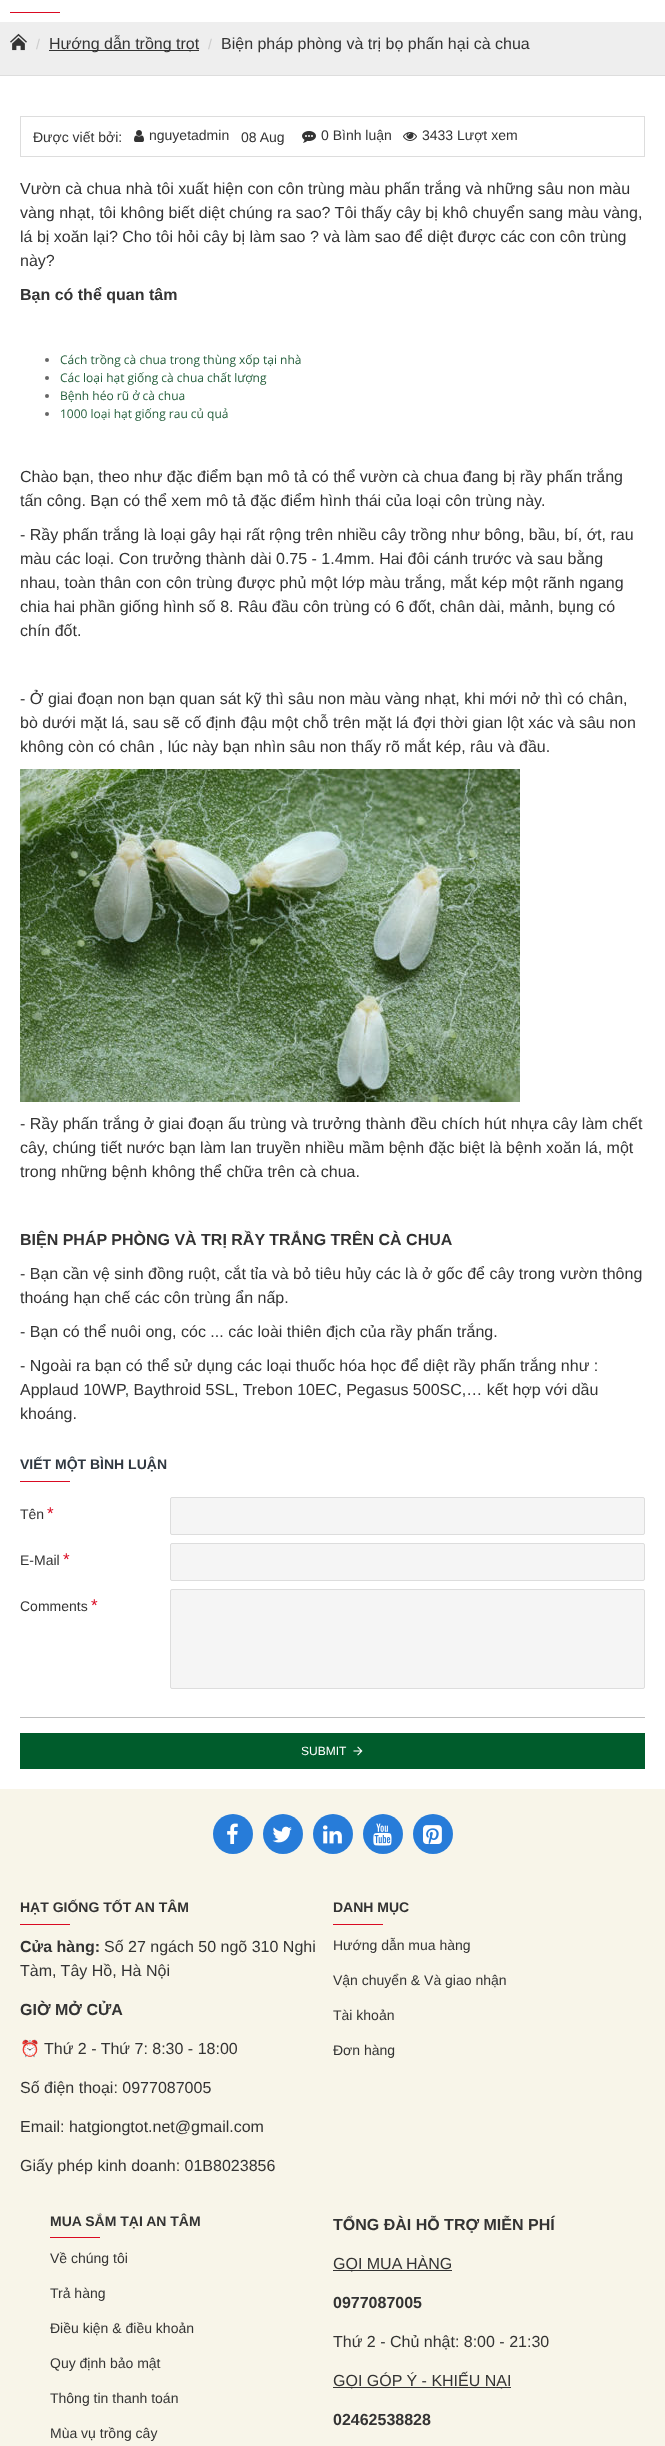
async function draw(canvas) {
  canvas.width = 665
  canvas.height = 2446
  const ctx = canvas.getContext('2d')
  ctx.miterLimit = 4
  ctx.fontKerning = 'normal'
  async function loadImage(src) {
    const img = new Image()
    img.src = src
    await img.decode()
    return img
  }

  ctx.fillStyle = '#eee'
  ctx.fillRect(0, 0, 665, 2446)
  ctx.fillStyle = '#fff'
  ctx.fillRect(0, 0, 665, 22)
  ctx.fillStyle = '#da0a22'
  ctx.fillRect(10, 12, 50, 1)
  ctx.drawImage(await loadImage('image0.png'), 10, 33, 17, 18)
  ctx.font = '14px Liberation Sans'
  ctx.fillStyle = '#ccc'
  ctx.fillText('/', 36, 49)
  ctx.fillStyle = '#333'
  ctx.fillRect(49, 50, 150, 1)
  ctx.font = '16px Liberation Sans'
  ctx.fillText('Hướng dẫn trồng trọt', 49, 49)
  ctx.font = '14px Liberation Sans'
  ctx.fillStyle = '#ccc'
  ctx.fillText('/', 208, 49)
  ctx.font = '16px Liberation Sans'
  ctx.fillStyle = '#333'
  ctx.fillText('Biện pháp phòng và trị bọ phấn hại cà chua', 221, 49)
  ctx.fillStyle = '#ddd'
  ctx.fillRect(0, 75, 665, 1)
  ctx.fillStyle = '#fff'
  ctx.fillRect(0, 76, 665, 1713)
  ctx.strokeStyle = '#ddd'
  ctx.strokeRect(20.5, 116.5, 624, 40)
  ctx.font = '14px Liberation Sans'
  ctx.fillStyle = '#333'
  ctx.fillText('Được viết bởi:', 33, 142)
  ctx.drawImage(await loadImage('image1.png'), 134, 130, 10, 12)
  ctx.fillText('nguyetadmin', 149, 140)
  ctx.fillText('08 Aug', 241, 142)
  ctx.drawImage(await loadImage('image2.png'), 302, 131, 14, 12)
  ctx.fillText('0 Bình luận', 321, 140)
  ctx.drawImage(await loadImage('image3.png'), 403, 132, 14, 9)
  ctx.fillText('3433 Lượt xem', 422, 140)
  ctx.font = '16px Liberation Sans'
  ctx.fillText('Vườn cà chua nhà tôi xuất hiện con côn trùng màu phấn trắng và những sâu non màu', 20, 194)
  ctx.fillText('vàng nhạt, tôi không biết diệt chúng ra sao? Tôi thấy cây bị khô chuyển sang màu vàng,', 20, 218)
  ctx.fillText('lá bị xoăn lại? Cho tôi hỏi cây bị làm sao ? và làm sao để diệt được các con côn trùng', 20, 242)
  ctx.fillText('này?', 20, 266)
  ctx.font = 'bold 16px Liberation Sans'
  ctx.fillText('Bạn có thể quan tâm', 20, 300)
  ctx.fillStyle = '#666'
  ctx.beginPath()
  ctx.arc(47, 360, 2, 0, 2 * Math.PI)
  ctx.fill()
  ctx.font = '12px Open Sans'
  ctx.fillStyle = '#235d3a'
  ctx.fillText('Cách trồng cà chua trong thùng xốp tại nhà', 60, 364)
  ctx.fillStyle = '#666'
  ctx.beginPath()
  ctx.arc(47, 378, 2, 0, 2 * Math.PI)
  ctx.fill()
  ctx.fillStyle = '#235d3a'
  ctx.fillText('Các loại hạt giống cà chua chất lượng', 60, 382)
  ctx.fillStyle = '#666'
  ctx.beginPath()
  ctx.arc(47, 396, 2, 0, 2 * Math.PI)
  ctx.fill()
  ctx.fillStyle = '#235d3a'
  ctx.fillText('Bệnh héo rũ ở cà chua', 60, 400)
  ctx.fillStyle = '#666'
  ctx.beginPath()
  ctx.arc(47, 414, 2, 0, 2 * Math.PI)
  ctx.fill()
  ctx.fillStyle = '#235d3a'
  ctx.fillText('1000 loại hạt giống rau củ quả', 60, 418)
  ctx.font = '16px Liberation Sans'
  ctx.fillStyle = '#333'
  ctx.fillText('Chào bạn, theo như đặc điểm bạn mô tả có thể vườn cà chua đang bị rầy phấn trắng', 20, 482)
  ctx.fillText('tấn công. Bạn có thể xem mô tả đặc điểm hình thái của loại côn trùng này.', 20, 506)
  ctx.fillText('- Rầy phấn trắng là loại gây hại rất rộng trên nhiều cây trồng như bông, bầu, bí, ớt, rau', 20, 540)
  ctx.fillText('màu các loại. Con trưởng thành dài 0.75 - 1.4mm. Hai đôi cánh trước và sau bằng', 20, 564)
  ctx.fillText('nhau, toàn thân con côn trùng được phủ một lớp màu trắng, mắt kép một rãnh ngang', 20, 588)
  ctx.fillText('chia hai phần giống hình số 8. Râu đầu côn trùng có 6 đốt, chân dài, mảnh, bụng có', 20, 612)
  ctx.fillText('chín đốt.', 20, 636)
  ctx.fillText('- Ở giai đoạn non bạn quan sát kỹ thì sâu non màu vàng nhạt, khi mới nở thì có chân,', 20, 704)
  ctx.fillText('bò dưới mặt lá, sau sẽ cố định đậu một chỗ trên mặt lá đợi thời gian lột xác và sâu non', 20, 728)
  ctx.fillText('không còn có chân , lúc này bạn nhìn sâu non thấy rõ mắt kép, râu và đầu.', 20, 752)
  ctx.drawImage(await loadImage('image4.png'), 20, 769, 500, 333)
  ctx.fillText('- Rầy phấn trắng ở giai đoạn ấu trùng và trưởng thành đều chích hút nhựa cây làm chết', 20, 1129)
  ctx.fillText('cây, chúng tiết nước bạn làm lan truyền nhiều mầm bệnh đặc biệt là bệnh xoăn lá, một', 20, 1153)
  ctx.fillText('trong những bệnh không thể chữa trên cà chua.', 20, 1177)
  ctx.font = 'bold 16px Liberation Sans'
  ctx.fillText('BIỆN PHÁP PHÒNG VÀ TRỊ RẦY TRẮNG TRÊN CÀ CHUA', 20, 1245)
  ctx.font = '16px Liberation Sans'
  ctx.fillText('- Bạn cần vệ sinh đồng ruột, cắt tỉa và bỏ tiêu hủy các là ở gốc để cây trong vườn thông', 20, 1279)
  ctx.fillText('thoáng hạn chế các côn trùng ẩn nấp.', 20, 1303)
  ctx.fillText('- Bạn có thể nuôi ong, cóc ... các loài thiên địch của rầy phấn trắng.', 20, 1337)
  ctx.fillText('- Ngoài ra bạn có thể sử dụng các loại thuốc hóa học để diệt rầy phấn trắng như :', 20, 1371)
  ctx.fillText('Applaud 10WP, Baythroid 5SL, Trebon 10EC, Pegasus 500SC,… kết hợp với dầu', 20, 1395)
  ctx.fillText('khoáng.', 20, 1419)
  ctx.font = 'bold 14px Liberation Sans'
  ctx.fillStyle = '#303841'
  ctx.fillText('VIẾT MỘT BÌNH LUẬN', 20, 1469)
  ctx.fillStyle = '#da0a22'
  ctx.fillRect(20, 1481, 50, 1)
  ctx.font = '14px Liberation Sans'
  ctx.fillStyle = '#333'
  ctx.fillText('Tên', 20, 1519)
  ctx.font = '17px Liberation Sans'
  ctx.fillStyle = '#da0a22'
  ctx.fillText('*', 47, 1519)
  ctx.fillStyle = '#f5f5f5'
  ctx.beginPath()
  ctx.roundRect(170.5, 1497.5, 474, 37, 1.5)
  ctx.fill()
  ctx.stroke()
  ctx.font = '14px Liberation Sans'
  ctx.fillStyle = '#333'
  ctx.fillText('E-Mail', 20, 1565)
  ctx.font = '17px Liberation Sans'
  ctx.fillStyle = '#da0a22'
  ctx.fillText('*', 63, 1565)
  ctx.fillStyle = '#f5f5f5'
  ctx.beginPath()
  ctx.roundRect(170.5, 1543.5, 474, 37, 1.5)
  ctx.fill()
  ctx.stroke()
  ctx.font = '14px Liberation Sans'
  ctx.fillStyle = '#333'
  ctx.fillText('Comments', 20, 1611)
  ctx.font = '17px Liberation Sans'
  ctx.fillStyle = '#da0a22'
  ctx.fillText('*', 91, 1611)
  ctx.fillStyle = '#f5f5f5'
  ctx.beginPath()
  ctx.roundRect(170.5, 1589.5, 474, 99, 1.5)
  ctx.fill()
  ctx.stroke()
  ctx.fillStyle = '#bebebe'
  ctx.fillRect(20, 1717, 625, 1)
  ctx.fillStyle = '#005c2c'
  ctx.fillRect(20, 1733, 625, 36)
  ctx.font = '12px Liberation Sans'
  ctx.fillStyle = '#fff'
  ctx.fillText('SUBMIT', 301, 1755)
  ctx.drawImage(await loadImage('image5.png'), 353, 1746, 10, 10)
  ctx.fillStyle = '#f8f5e9'
  ctx.fillRect(0, 1789, 665, 657)
  ctx.fillStyle = '#277cd9'
  ctx.beginPath()
  ctx.arc(233, 1834, 20, 0, 2 * Math.PI)
  ctx.fill()
  ctx.drawImage(await loadImage('image6.png'), 227, 1823, 11, 21)
  ctx.beginPath()
  ctx.arc(283, 1834, 20, 0, 2 * Math.PI)
  ctx.fill()
  ctx.drawImage(await loadImage('image7.png'), 272, 1826, 20, 17)
  ctx.beginPath()
  ctx.arc(333, 1834, 20, 0, 2 * Math.PI)
  ctx.fill()
  ctx.drawImage(await loadImage('image8.png'), 323, 1825, 19, 19)
  ctx.beginPath()
  ctx.arc(383, 1834, 20, 0, 2 * Math.PI)
  ctx.fill()
  ctx.drawImage(await loadImage('image9.png'), 373, 1823, 19, 23)
  ctx.beginPath()
  ctx.arc(433, 1834, 20, 0, 2 * Math.PI)
  ctx.fill()
  ctx.drawImage(await loadImage('image10.png'), 423, 1825, 19, 19)
  ctx.font = 'bold 14px Liberation Sans'
  ctx.fillStyle = '#333'
  ctx.fillText('HẠT GIỐNG TỐT AN TÂM', 20, 1912)
  ctx.fillStyle = '#da0a22'
  ctx.fillRect(20, 1924, 50, 1)
  ctx.font = 'bold 16px Liberation Sans'
  ctx.fillStyle = '#333'
  ctx.fillText('Cửa hàng:', 20, 1952)
  ctx.font = '16px Liberation Sans'
  ctx.fillText('Số 27 ngách 50 ngõ 310 Nghi', 104, 1952)
  ctx.fillText('Tàm, Tây Hồ, Hà Nội', 20, 1976)
  ctx.font = 'bold 16px Liberation Sans'
  ctx.fillText('GIỜ MỞ CỬA', 20, 2015)
  ctx.font = '16px Noto Color Emoji'
  ctx.fillText('⏰', 20, 2054)
  ctx.font = '16px Liberation Sans'
  ctx.fillText('Thứ 2 - Thứ 7: 8:30 - 18:00', 44, 2054)
  ctx.fillText('Số điện thoại: 0977087005', 20, 2093)
  ctx.fillText('Email: hatgiongtot.net@gmail.com', 20, 2132)
  ctx.fillText('Giấy phép kinh doanh: 01B8023856', 20, 2171)
  ctx.font = 'bold 14px Liberation Sans'
  ctx.fillText('DANH MỤC', 333, 1912)
  ctx.fillStyle = '#da0a22'
  ctx.fillRect(333, 1924, 50, 1)
  ctx.font = '14px Liberation Sans'
  ctx.fillStyle = '#333'
  ctx.fillText('Hướng dẫn mua hàng', 333, 1950)
  ctx.fillText('Vận chuyển & Và giao nhận', 333, 1985)
  ctx.fillText('Tài khoản', 333, 2020)
  ctx.fillText('Đơn hàng', 333, 2055)
  ctx.font = 'bold 14px Liberation Sans'
  ctx.fillText('MUA SẮM TẠI AN TÂM', 50, 2226)
  ctx.fillStyle = '#da0a22'
  ctx.fillRect(50, 2237, 50, 1)
  ctx.font = '14px Liberation Sans'
  ctx.fillStyle = '#333'
  ctx.fillText('Về chúng tôi', 50, 2263)
  ctx.fillText('Trả hàng', 50, 2298)
  ctx.fillText('Điều kiện & điều khoản', 50, 2333)
  ctx.fillText('Quy định bảo mật', 50, 2368)
  ctx.fillText('Thông tin thanh toán', 50, 2403)
  ctx.fillText('Mùa vụ trồng cây', 50, 2438)
  ctx.font = 'bold 16px Liberation Sans'
  ctx.fillText('TỔNG ĐÀI HỖ TRỢ MIỄN PHÍ', 333, 2230)
  ctx.fillRect(333, 2270, 119, 1)
  ctx.font = '16px Liberation Sans'
  ctx.fillText('GỌI MUA HÀNG', 333, 2269)
  ctx.font = 'bold 16px Liberation Sans'
  ctx.fillText('0977087005', 333, 2308)
  ctx.font = '16px Liberation Sans'
  ctx.fillText('Thứ 2 - Chủ nhật: 8:00 - 21:30', 333, 2347)
  ctx.fillRect(333, 2387, 178, 1)
  ctx.fillText('GỌI GÓP Ý - KHIẾU NẠI', 333, 2386)
  ctx.font = 'bold 16px Liberation Sans'
  ctx.fillText('02462538828', 333, 2425)
}

draw(document.querySelector('canvas'))
